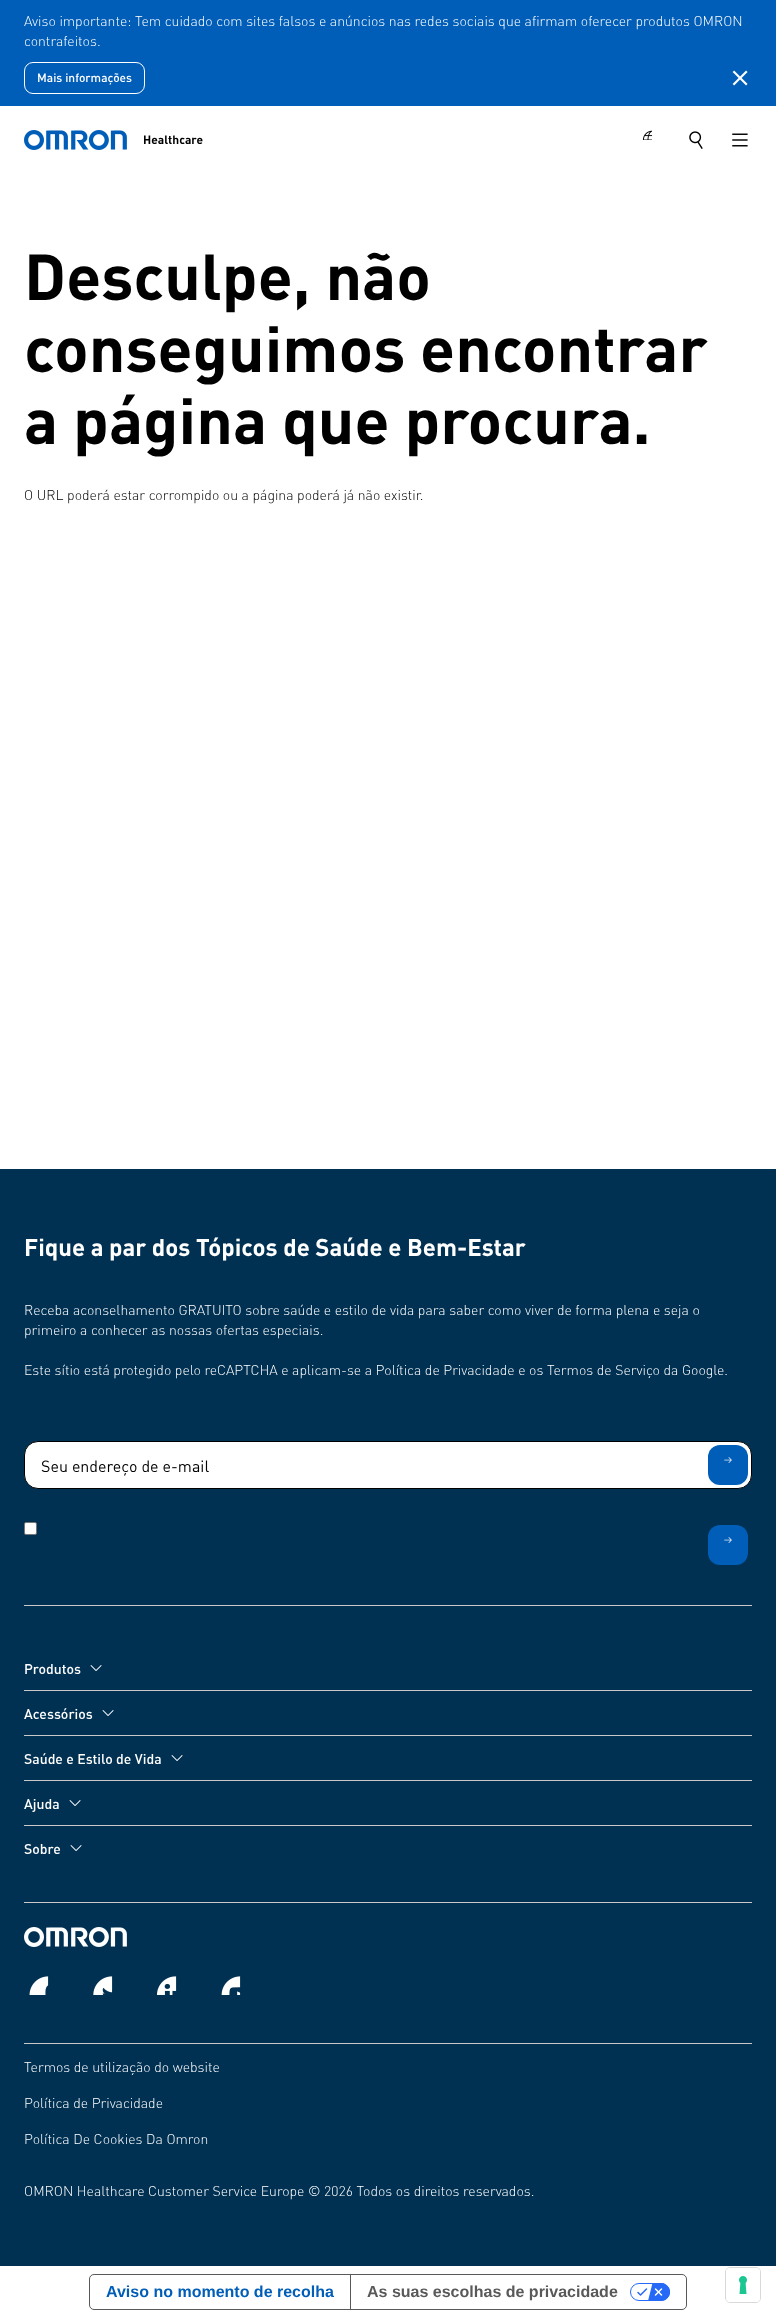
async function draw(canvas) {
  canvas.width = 776
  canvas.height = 2318
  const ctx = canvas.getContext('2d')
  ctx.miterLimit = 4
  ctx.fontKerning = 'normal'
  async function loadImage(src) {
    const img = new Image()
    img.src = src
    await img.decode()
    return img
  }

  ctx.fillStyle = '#fff'
  ctx.fillRect(0, 0, 776, 2318)
  ctx.fillStyle = '#005eb8'
  ctx.fillRect(0, 0, 776, 106)
  ctx.font = '300 14px DIN'
  ctx.fillStyle = '#fff'
  ctx.fillText('Aviso importante: Tem cuidado com sites falsos e anúncios nas redes sociais que afirmam oferecer produtos OMRON', 24, 26)
  ctx.fillText('contrafeitos.', 24, 46)
  ctx.beginPath()
  ctx.roundRect(24.5, 62.5, 120, 31, 8.5)
  ctx.strokeStyle = '#fff'
  ctx.stroke()
  ctx.font = '500 12px DIN'
  ctx.fillText('Mais informações', 37, 82)
  ctx.drawImage(await loadImage('image0.png'), 732, 70, 16, 16)
  ctx.drawImage(await loadImage('image1.png'), 24, 130, 103, 20)
  ctx.font = 'bold 12px DIN'
  ctx.fillStyle = '#000'
  ctx.fillText('Healthcare', 143, 144)
  ctx.drawImage(await loadImage('image2.png'), 642, 130, 11, 10)
  ctx.drawImage(await loadImage('image3.png'), 689, 131, 14, 18)
  ctx.drawImage(await loadImage('image4.png'), 732, 133, 16, 14)
  ctx.font = 'bold 64px DIN'
  ctx.fillText('Desculpe, não', 24, 300)
  ctx.fillText('conseguimos encontrar', 24, 372)
  ctx.fillText('a página que procura.', 24, 444)
  ctx.font = '300 14px DIN'
  ctx.fillText('O URL poderá estar corrompido ou a página poderá já não existir.', 24, 500)
  ctx.fillStyle = '#003153'
  ctx.fillRect(0, 1169, 776, 1097)
  ctx.font = 'bold 24px DIN'
  ctx.fillStyle = '#fff'
  ctx.fillText('Fique a par dos Tópicos de Saúde e Bem-Estar', 24, 1256)
  ctx.font = '300 14px DIN'
  ctx.fillText('Receba aconselhamento GRATUITO sobre saúde e estilo de vida para saber como viver de forma plena e seja o', 24, 1315)
  ctx.fillText('primeiro a conhecer as nossas ofertas especiais.', 24, 1335)
  ctx.fillText('Este sítio está protegido pelo reCAPTCHA e aplicam-se a Política de Privacidade e os Termos de Serviço da Google.', 24, 1375)
  ctx.beginPath()
  ctx.roundRect(24.5, 1441.5, 727, 47, 13.5)
  ctx.fill()
  ctx.strokeStyle = '#000'
  ctx.stroke()
  ctx.font = '16px DIN'
  ctx.fillStyle = '#000'
  ctx.fillText('Seu endereço de e-mail', 41, 1472)
  ctx.fillStyle = '#005eb8'
  ctx.beginPath()
  ctx.roundRect(708, 1445, 40, 40, 12)
  ctx.fill()
  ctx.drawImage(await loadImage('image5.png'), 724, 1457, 8, 6)
  ctx.fillStyle = '#fff'
  ctx.beginPath()
  ctx.roundRect(24.5, 1522.5, 12, 12, 1.5)
  ctx.fill()
  ctx.strokeStyle = '#767676'
  ctx.stroke()
  ctx.fillStyle = '#005eb8'
  ctx.beginPath()
  ctx.roundRect(708, 1525, 40, 40, 12)
  ctx.fill()
  ctx.drawImage(await loadImage('image5.png'), 724, 1537, 8, 6)
  ctx.fillStyle = '#c9c9c9'
  ctx.fillRect(24, 1605, 728, 1)
  ctx.fillRect(24, 1690, 728, 1)
  ctx.font = '500 14px DIN'
  ctx.fillStyle = '#fff'
  ctx.fillText('Produtos', 24, 1674)
  ctx.drawImage(await loadImage('image6.png'), 90, 1665, 12, 6)
  ctx.fillStyle = '#c9c9c9'
  ctx.fillRect(24, 1735, 728, 1)
  ctx.fillStyle = '#fff'
  ctx.fillText('Acessórios', 24, 1719)
  ctx.drawImage(await loadImage('image6.png'), 102, 1710, 12, 6)
  ctx.fillStyle = '#c9c9c9'
  ctx.fillRect(24, 1780, 728, 1)
  ctx.fillStyle = '#fff'
  ctx.fillText('Saúde e Estilo de Vida', 24, 1764)
  ctx.drawImage(await loadImage('image6.png'), 171, 1755, 12, 6)
  ctx.fillStyle = '#c9c9c9'
  ctx.fillRect(24, 1825, 728, 1)
  ctx.fillStyle = '#fff'
  ctx.fillText('Ajuda', 24, 1809)
  ctx.drawImage(await loadImage('image6.png'), 69, 1800, 12, 6)
  ctx.fillText('Sobre', 24, 1854)
  ctx.drawImage(await loadImage('image6.png'), 70, 1845, 12, 6)
  ctx.fillStyle = '#c9c9c9'
  ctx.fillRect(24, 1902, 728, 1)
  ctx.drawImage(await loadImage('image7.png'), 24, 1927, 103, 20)
  ctx.drawImage(await loadImage('image8.png'), 29, 1976, 20, 19)
  ctx.drawImage(await loadImage('image9.png'), 93, 1976, 20, 19)
  ctx.drawImage(await loadImage('image10.png'), 157, 1976, 20, 19)
  ctx.drawImage(await loadImage('image11.png'), 221, 1976, 20, 19)
  ctx.fillRect(24, 2043, 728, 1)
  ctx.font = '300 14px DIN'
  ctx.fillStyle = '#fff'
  ctx.fillText('Termos de utilização do website', 24, 2072)
  ctx.fillText('Política de Privacidade', 24, 2108)
  ctx.fillText('Política De Cookies Da Omron', 24, 2144)
  ctx.fillText('OMRON Healthcare Customer Service Europe © 2026 Todos os direitos reservados.', 24, 2196)
  ctx.beginPath()
  ctx.roundRect(89.5, 2274.5, 597, 35, 4.5)
  ctx.strokeStyle = '#595959'
  ctx.stroke()
  ctx.font = 'bold 16px Liberation Sans'
  ctx.fillStyle = '#005eb8'
  ctx.fillText('Aviso no momento de recolha', 106, 2297)
  ctx.fillStyle = '#595959'
  ctx.fillRect(350, 2275, 1, 34)
  ctx.fillText('As suas escolhas de privacidade', 367, 2297)
  ctx.drawImage(await loadImage('image12.png'), 630, 2283, 40, 18)
  ctx.beginPath()
  ctx.roundRect(725.5, 2267.5, 35, 35, 4.5)
  ctx.strokeStyle = '#d9d9d9'
  ctx.stroke()
  ctx.fillStyle = '#fff'
  ctx.beginPath()
  ctx.roundRect(726, 2268, 34, 34, 4)
  ctx.fill()
  ctx.drawImage(await loadImage('image13.png'), 739, 2276, 8, 18)
}

draw(document.querySelector('canvas'))
